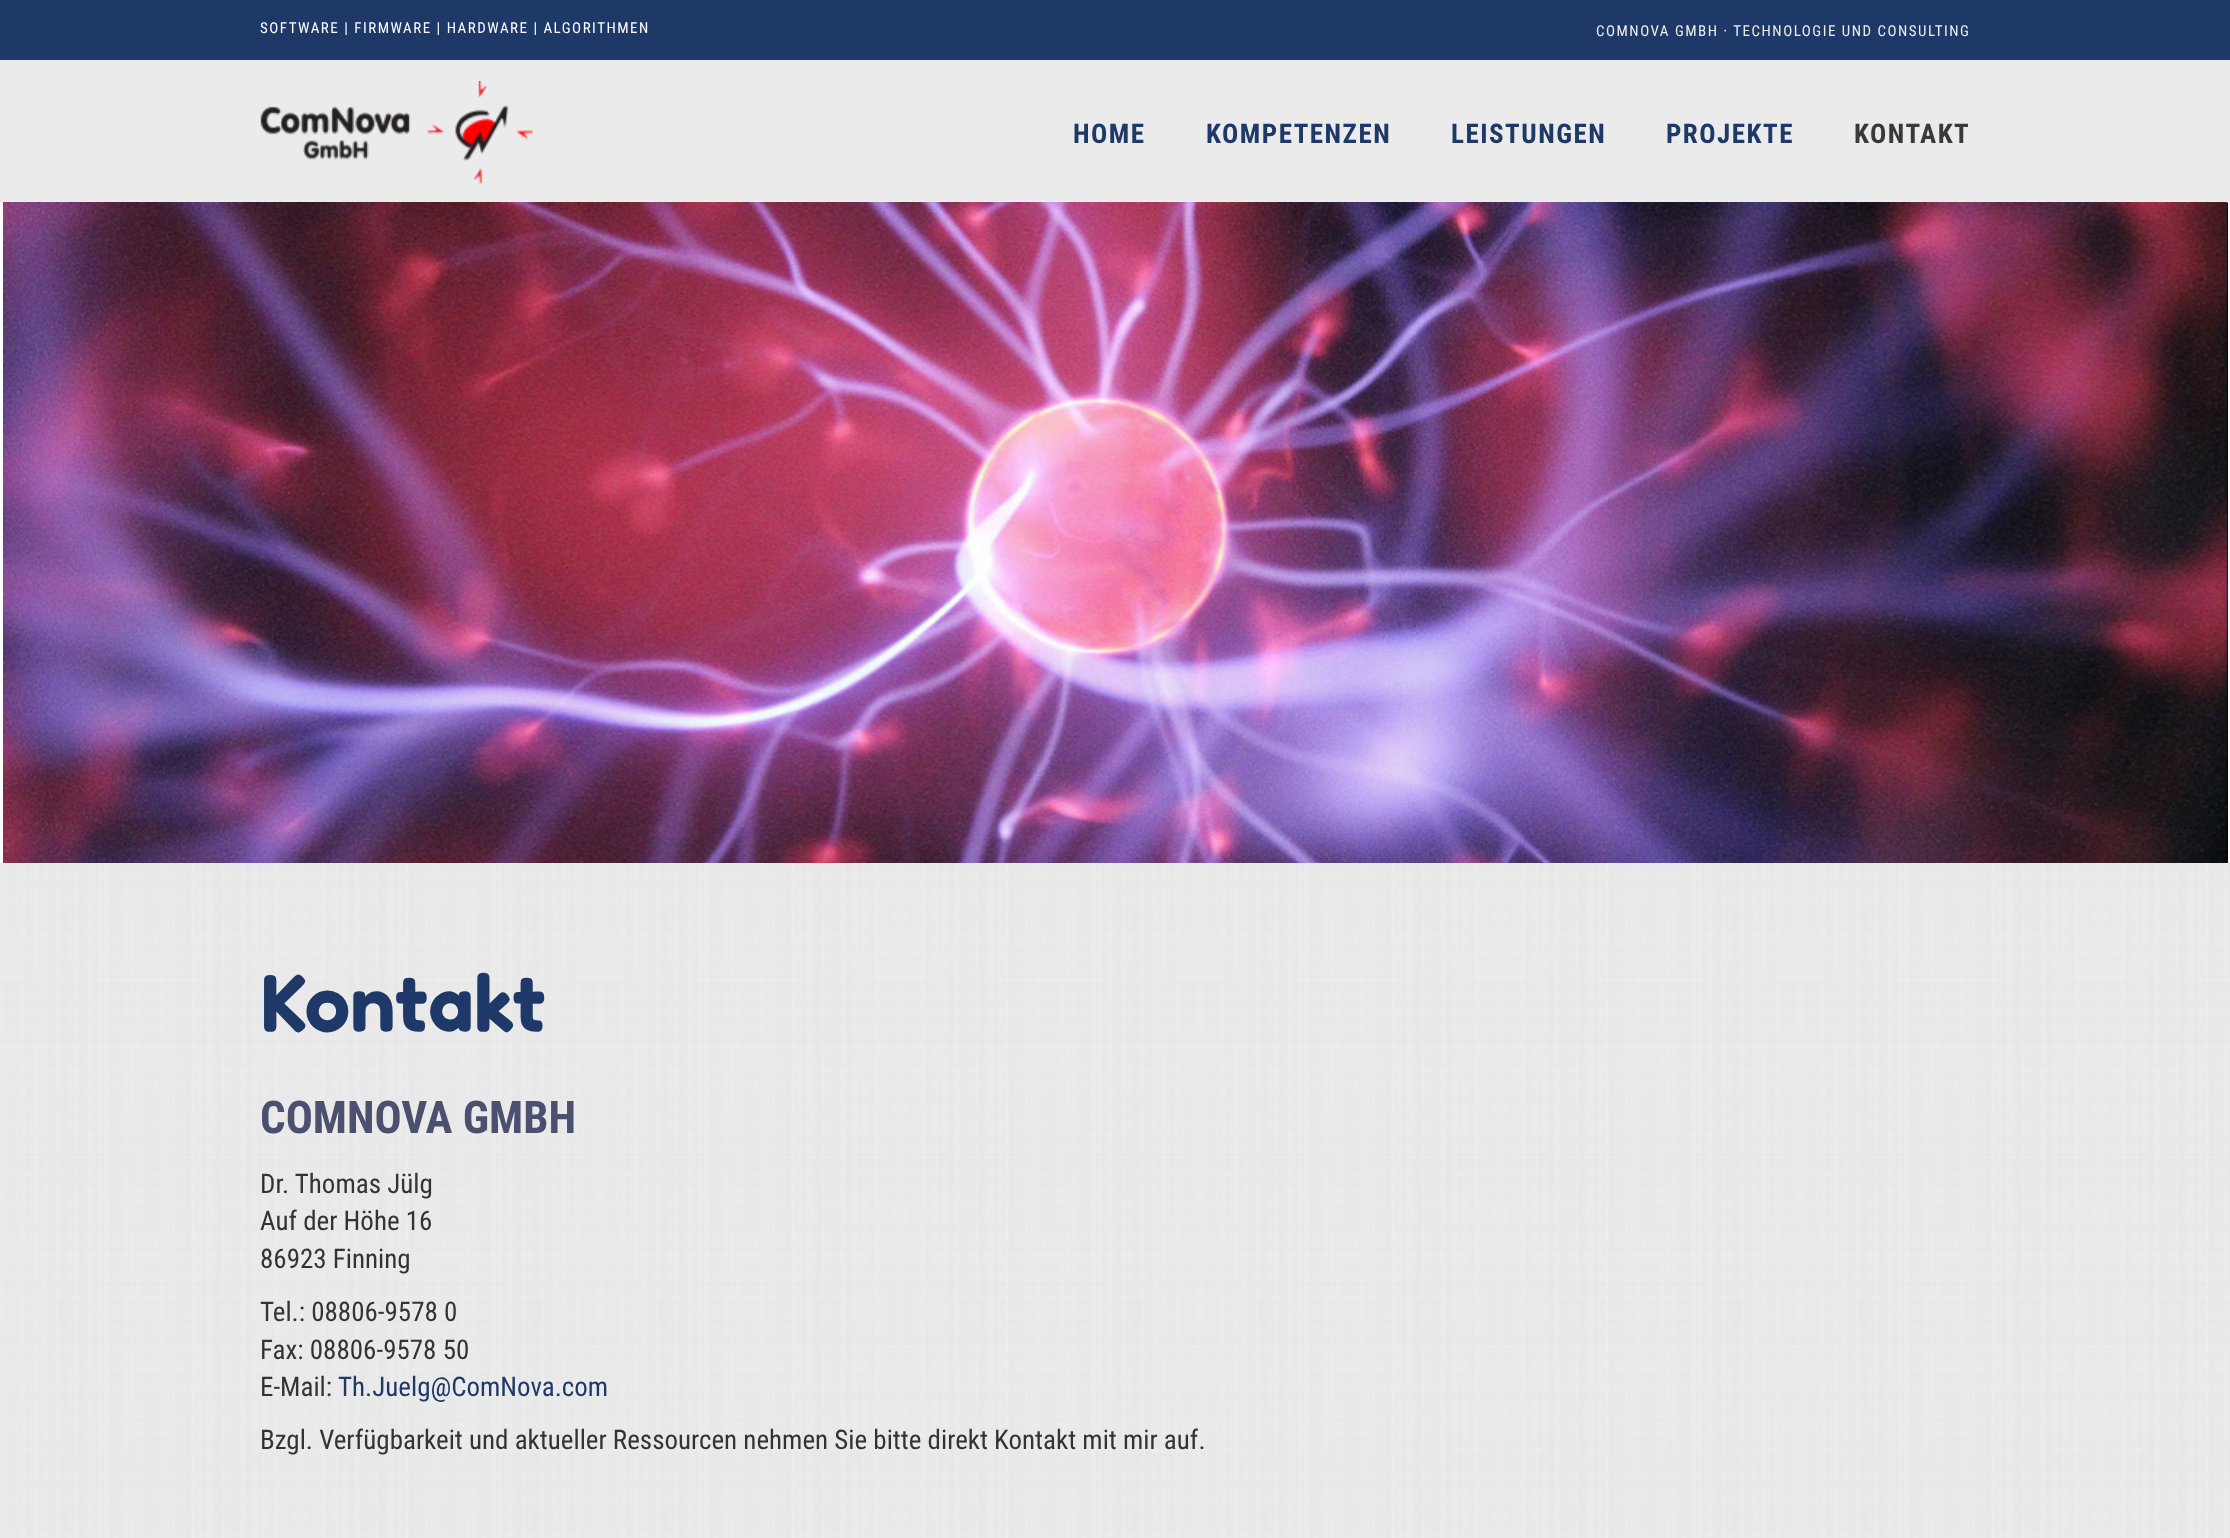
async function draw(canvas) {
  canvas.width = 2230
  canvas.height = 1538
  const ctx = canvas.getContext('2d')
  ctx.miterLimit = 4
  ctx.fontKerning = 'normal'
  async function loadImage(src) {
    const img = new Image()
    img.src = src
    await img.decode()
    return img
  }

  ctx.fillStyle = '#f6ece0'
  ctx.fillRect(0, 0, 2230, 1538)
  ctx.fillStyle = '#fff'
  ctx.fillRect(0, 203, 2230, 660)
  ctx.fillStyle = '#ebebeb'
  ctx.fillRect(0, 60, 2230, 141)
  ctx.fillStyle = '#1e3968'
  ctx.fillRect(0, 0, 2230, 60)
  ctx.letterSpacing = '1.5px'
  ctx.font = '15px Roboto Condensed'
  ctx.fillStyle = '#fff'
  ctx.fillText('SOFTWARE | FIRMWARE | HARDWARE | ALGORITHMEN', 260, 33)
  ctx.fillStyle = '#eee'
  ctx.fillText('COMNOVA GMBH · TECHNOLOGIE UND CONSULTING', 1596, 36)
  ctx.drawImage(await loadImage('image0.png'), 260, 81, 273, 104)
  ctx.font = 'bold 27px Roboto Condensed'
  ctx.fillStyle = '#1e3968'
  ctx.fillText('HOME', 1073, 143)
  ctx.fillText('KOMPETENZEN', 1206, 143)
  ctx.fillText('LEISTUNGEN', 1451, 143)
  ctx.fillText('PROJEKTE', 1666, 143)
  ctx.fillStyle = '#393939'
  ctx.fillText('KONTAKT', 1854, 143)
  ctx.drawImage(await loadImage('image2.png'), 0, 862, 2230, 676)
  ctx.fillStyle = '#000'
  ctx.fillRect(2226, 203, 2, 660)
  ctx.drawImage(await loadImage('image1.png'), 3, 202, 2225, 661)
  ctx.letterSpacing = '0px'
  ctx.font = '600 81px Fredoka'
  ctx.fillStyle = '#1e3968'
  ctx.fillText('Kontakt', 260, 1031)
  ctx.font = 'bold 45px Roboto Condensed'
  ctx.fillStyle = '#4a506e'
  ctx.fillText('COMNOVA GMBH', 260, 1133)
  ctx.font = '27px Roboto Condensed'
  ctx.fillStyle = '#333'
  ctx.fillText('Dr. Thomas Jülg', 260, 1193)
  ctx.fillText('Auf der Höhe 16', 260, 1230)
  ctx.fillText('86923 Finning', 260, 1268)
  ctx.fillText('Tel.: 08806-9578 0', 260, 1321)
  ctx.fillText('Fax: 08806-9578 50', 260, 1359)
  ctx.fillText('E-Mail:', 260, 1396)
  ctx.fillStyle = '#1e3968'
  ctx.fillText('Th.Juelg@ComNova.com', 338, 1396)
  ctx.fillStyle = '#333'
  ctx.fillText('Bzgl. Verfügbarkeit und aktueller Ressourcen nehmen Sie bitte direkt Kontakt mit mir auf.', 260, 1449)
}

draw(document.querySelector('canvas'))
